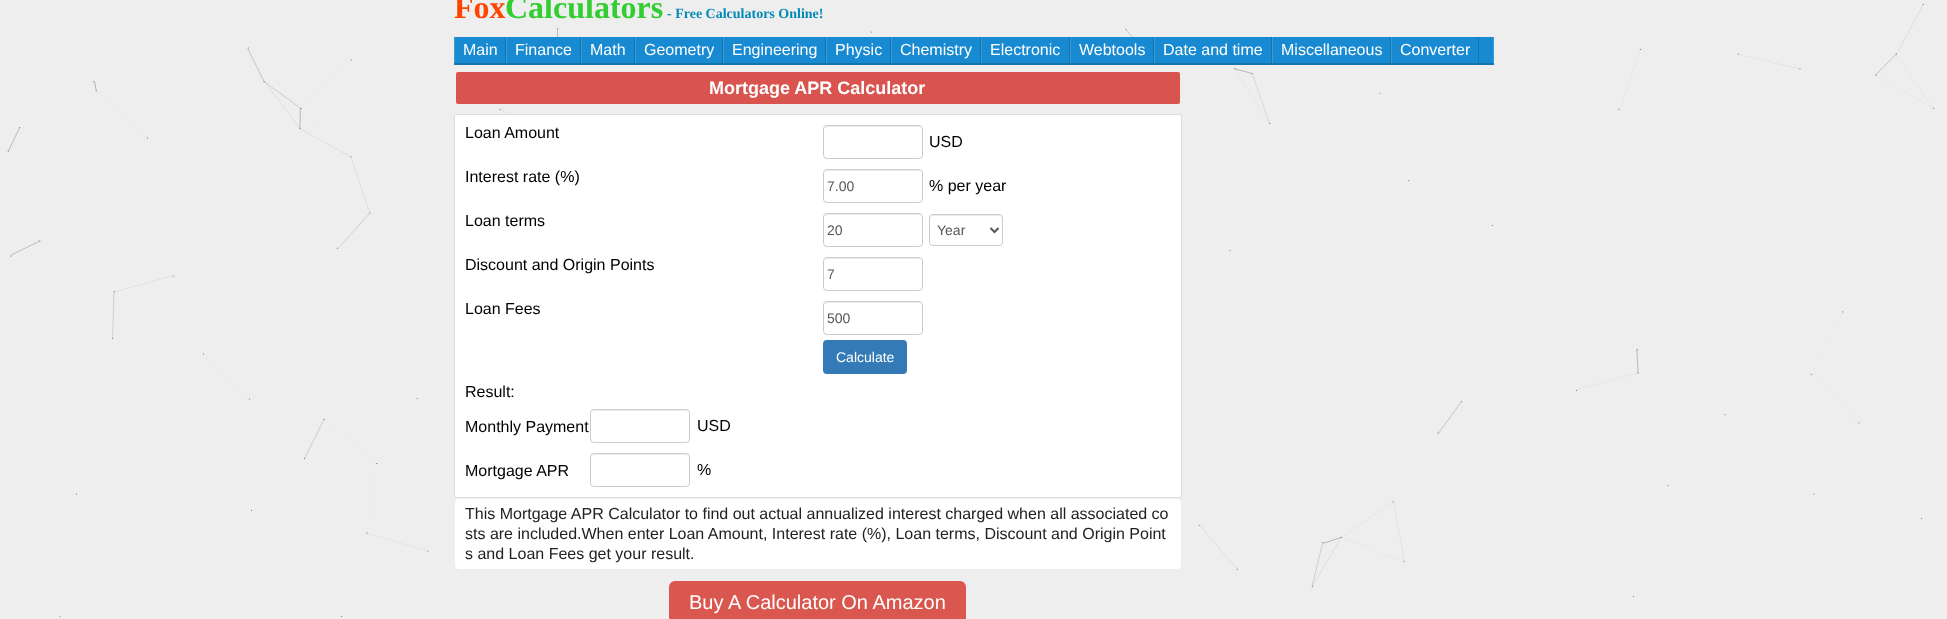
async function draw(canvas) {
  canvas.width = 1947
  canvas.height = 619
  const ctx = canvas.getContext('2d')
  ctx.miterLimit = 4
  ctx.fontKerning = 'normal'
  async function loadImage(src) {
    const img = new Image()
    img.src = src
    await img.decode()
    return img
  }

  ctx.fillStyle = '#eee'
  ctx.fillRect(0, 0, 1947, 619)
  ctx.drawImage(await loadImage('image0.png'), 7, 3, 1927, 615)
  ctx.font = 'bold 32px Liberation Serif'
  ctx.fillStyle = '#ff4500'
  ctx.fillText('Fox', 454, 18)
  ctx.fillStyle = '#32cd32'
  ctx.fillText('Calculators', 505, 18)
  ctx.font = 'bold 14px Liberation Serif'
  ctx.fillStyle = '#0289b6'
  ctx.fillText('- Free Calculators Online!', 667, 18)
  ctx.fillStyle = '#178ad2'
  ctx.fillRect(455, 37, 1038, 26)
  ctx.fillStyle = '#1674ad'
  ctx.fillRect(454, 63, 1040, 2)
  ctx.fillStyle = '#3a9bd9'
  ctx.fillRect(1493, 37, 1, 26)
  ctx.fillStyle = '#1674ad'
  ctx.fillRect(505, 37, 1, 26)
  ctx.fillStyle = '#3a9bd9'
  ctx.fillRect(454, 37, 1, 26)
  ctx.font = '16px Liberation Sans'
  ctx.fillStyle = '#fff'
  ctx.fillText('Main', 463, 55)
  ctx.fillStyle = '#1674ad'
  ctx.fillRect(580, 37, 1, 26)
  ctx.fillStyle = '#3a9bd9'
  ctx.fillRect(506, 37, 1, 26)
  ctx.fillStyle = '#fff'
  ctx.fillText('Finance', 515, 55)
  ctx.fillStyle = '#1674ad'
  ctx.fillRect(634, 37, 1, 26)
  ctx.fillStyle = '#3a9bd9'
  ctx.fillRect(581, 37, 1, 26)
  ctx.fillStyle = '#fff'
  ctx.fillText('Math', 590, 55)
  ctx.fillStyle = '#1674ad'
  ctx.fillRect(722, 37, 1, 26)
  ctx.fillStyle = '#3a9bd9'
  ctx.fillRect(635, 37, 1, 26)
  ctx.fillStyle = '#fff'
  ctx.fillText('Geometry', 644, 55)
  ctx.fillStyle = '#1674ad'
  ctx.fillRect(825, 37, 1, 26)
  ctx.fillStyle = '#3a9bd9'
  ctx.fillRect(723, 37, 1, 26)
  ctx.fillStyle = '#fff'
  ctx.fillText('Engineering', 732, 55)
  ctx.fillStyle = '#1674ad'
  ctx.fillRect(890, 37, 1, 26)
  ctx.fillStyle = '#3a9bd9'
  ctx.fillRect(826, 37, 1, 26)
  ctx.fillStyle = '#fff'
  ctx.fillText('Physic', 835, 55)
  ctx.fillStyle = '#1674ad'
  ctx.fillRect(980, 37, 1, 26)
  ctx.fillStyle = '#3a9bd9'
  ctx.fillRect(891, 37, 1, 26)
  ctx.fillStyle = '#fff'
  ctx.fillText('Chemistry', 900, 55)
  ctx.fillStyle = '#1674ad'
  ctx.fillRect(1069, 37, 1, 26)
  ctx.fillStyle = '#3a9bd9'
  ctx.fillRect(981, 37, 1, 26)
  ctx.fillStyle = '#fff'
  ctx.fillText('Electronic', 990, 55)
  ctx.fillStyle = '#1674ad'
  ctx.fillRect(1153, 37, 1, 26)
  ctx.fillStyle = '#3a9bd9'
  ctx.fillRect(1070, 37, 1, 26)
  ctx.fillStyle = '#fff'
  ctx.fillText('Webtools', 1079, 55)
  ctx.fillStyle = '#1674ad'
  ctx.fillRect(1271, 37, 1, 26)
  ctx.fillStyle = '#3a9bd9'
  ctx.fillRect(1154, 37, 1, 26)
  ctx.fillStyle = '#fff'
  ctx.fillText('Date and time', 1163, 55)
  ctx.fillStyle = '#1674ad'
  ctx.fillRect(1390, 37, 1, 26)
  ctx.fillStyle = '#3a9bd9'
  ctx.fillRect(1272, 37, 1, 26)
  ctx.fillStyle = '#fff'
  ctx.fillText('Miscellaneous', 1281, 55)
  ctx.fillStyle = '#1674ad'
  ctx.fillRect(1478, 37, 1, 26)
  ctx.fillStyle = '#3a9bd9'
  ctx.fillRect(1391, 37, 1, 26)
  ctx.fillStyle = '#fff'
  ctx.fillText('Converter', 1400, 55)
  ctx.fillStyle = '#d9534f'
  ctx.beginPath()
  ctx.roundRect(456, 72, 724, 32, 2)
  ctx.fill()
  ctx.font = 'bold 18px Liberation Sans'
  ctx.fillStyle = '#fff'
  ctx.fillText('Mortgage APR Calculator', 709, 94)
  ctx.beginPath()
  ctx.roundRect(454.5, 114.5, 727, 383, 1.5)
  ctx.fill()
  ctx.strokeStyle = '#ddd'
  ctx.stroke()
  ctx.font = '16px Liberation Sans'
  ctx.fillStyle = '#000'
  ctx.fillText('Loan Amount', 465, 138)
  ctx.fillStyle = '#ececec'
  ctx.beginPath()
  ctx.moveTo(827, 127)
  ctx.lineTo(919, 127)
  ctx.bezierCurveTo(921, 127, 922, 128, 922, 130)
  ctx.bezierCurveTo(922, 122, 907, 126, 904, 126)
  ctx.lineTo(842, 126)
  ctx.bezierCurveTo(839, 126, 824, 122, 824, 130)
  ctx.bezierCurveTo(824, 128, 825, 127, 827, 127)
  ctx.closePath()
  ctx.fill()
  ctx.beginPath()
  ctx.roundRect(823.5, 125.5, 99, 33, 3.5)
  ctx.strokeStyle = '#ccc'
  ctx.stroke()
  ctx.fillStyle = '#000'
  ctx.fillText('USD', 929, 147)
  ctx.fillText('Interest rate (%)', 465, 182)
  ctx.fillStyle = '#ececec'
  ctx.beginPath()
  ctx.moveTo(827, 171)
  ctx.lineTo(919, 171)
  ctx.bezierCurveTo(921, 171, 922, 172, 922, 174)
  ctx.bezierCurveTo(922, 166, 907, 170, 904, 170)
  ctx.lineTo(842, 170)
  ctx.bezierCurveTo(839, 170, 824, 166, 824, 174)
  ctx.bezierCurveTo(824, 172, 825, 171, 827, 171)
  ctx.closePath()
  ctx.fill()
  ctx.beginPath()
  ctx.roundRect(823.5, 169.5, 99, 33, 3.5)
  ctx.stroke()
  ctx.font = '14px Liberation Sans'
  ctx.fillStyle = '#555'
  ctx.fillText('7.00', 827, 191)
  ctx.font = '16px Liberation Sans'
  ctx.fillStyle = '#000'
  ctx.fillText('% per year', 929, 191)
  ctx.fillText('Loan terms', 465, 226)
  ctx.fillStyle = '#ececec'
  ctx.beginPath()
  ctx.moveTo(827, 215)
  ctx.lineTo(919, 215)
  ctx.bezierCurveTo(921, 215, 922, 216, 922, 218)
  ctx.bezierCurveTo(922, 210, 907, 214, 904, 214)
  ctx.lineTo(842, 214)
  ctx.bezierCurveTo(839, 214, 824, 210, 824, 218)
  ctx.bezierCurveTo(824, 216, 825, 215, 827, 215)
  ctx.closePath()
  ctx.fill()
  ctx.beginPath()
  ctx.roundRect(823.5, 213.5, 99, 33, 3.5)
  ctx.stroke()
  ctx.font = '14px Liberation Sans'
  ctx.fillStyle = '#555'
  ctx.fillText('20', 827, 235)
  ctx.fillStyle = '#ececec'
  ctx.beginPath()
  ctx.moveTo(933, 216)
  ctx.lineTo(999, 216)
  ctx.bezierCurveTo(1001, 216, 1002, 217, 1002, 219)
  ctx.bezierCurveTo(1002, 212, 992, 215, 988, 215)
  ctx.lineTo(944, 215)
  ctx.bezierCurveTo(940, 215, 930, 212, 930, 219)
  ctx.bezierCurveTo(930, 217, 931, 216, 933, 216)
  ctx.closePath()
  ctx.fill()
  ctx.beginPath()
  ctx.roundRect(929.5, 214.5, 73, 31, 3.5)
  ctx.stroke()
  ctx.beginPath()
  ctx.moveTo(990.5, 228)
  ctx.lineTo(994.5, 232)
  ctx.lineTo(998.5, 228)
  ctx.strokeStyle = '#555'
  ctx.lineWidth = 2
  ctx.stroke()
  ctx.fillStyle = '#555'
  ctx.fillText('Year', 937, 235)
  ctx.font = '16px Liberation Sans'
  ctx.fillStyle = '#000'
  ctx.fillText('Discount and Origin Points', 465, 270)
  ctx.fillStyle = '#ececec'
  ctx.beginPath()
  ctx.moveTo(827, 259)
  ctx.lineTo(919, 259)
  ctx.bezierCurveTo(921, 259, 922, 260, 922, 262)
  ctx.bezierCurveTo(922, 254, 907, 258, 904, 258)
  ctx.lineTo(842, 258)
  ctx.bezierCurveTo(839, 258, 824, 254, 824, 262)
  ctx.bezierCurveTo(824, 260, 825, 259, 827, 259)
  ctx.closePath()
  ctx.fill()
  ctx.beginPath()
  ctx.roundRect(823.5, 257.5, 99, 33, 3.5)
  ctx.strokeStyle = '#ccc'
  ctx.lineWidth = 1
  ctx.stroke()
  ctx.font = '14px Liberation Sans'
  ctx.fillStyle = '#555'
  ctx.fillText('7', 827, 279)
  ctx.font = '16px Liberation Sans'
  ctx.fillStyle = '#000'
  ctx.fillText('Loan Fees', 465, 314)
  ctx.fillStyle = '#ececec'
  ctx.beginPath()
  ctx.moveTo(827, 303)
  ctx.lineTo(919, 303)
  ctx.bezierCurveTo(921, 303, 922, 304, 922, 306)
  ctx.bezierCurveTo(922, 298, 907, 302, 904, 302)
  ctx.lineTo(842, 302)
  ctx.bezierCurveTo(839, 302, 824, 298, 824, 306)
  ctx.bezierCurveTo(824, 304, 825, 303, 827, 303)
  ctx.closePath()
  ctx.fill()
  ctx.beginPath()
  ctx.roundRect(823.5, 301.5, 99, 33, 3.5)
  ctx.stroke()
  ctx.font = '14px Liberation Sans'
  ctx.fillStyle = '#555'
  ctx.fillText('500', 827, 323)
  ctx.fillStyle = '#337ab7'
  ctx.beginPath()
  ctx.roundRect(823, 340, 84, 34, 4)
  ctx.fill()
  ctx.fillStyle = '#fff'
  ctx.fillText('Calculate', 836, 362)
  ctx.font = '16px Liberation Sans'
  ctx.fillStyle = '#000'
  ctx.fillText('Result:', 465, 397)
  ctx.fillText('Monthly Payment', 465, 432)
  ctx.fillStyle = '#ececec'
  ctx.beginPath()
  ctx.moveTo(594, 411)
  ctx.lineTo(686, 411)
  ctx.bezierCurveTo(688, 411, 689, 412, 689, 414)
  ctx.bezierCurveTo(689, 406, 674, 410, 671, 410)
  ctx.lineTo(609, 410)
  ctx.bezierCurveTo(606, 410, 591, 406, 591, 414)
  ctx.bezierCurveTo(591, 412, 592, 411, 594, 411)
  ctx.closePath()
  ctx.fill()
  ctx.beginPath()
  ctx.roundRect(590.5, 409.5, 99, 33, 3.5)
  ctx.stroke()
  ctx.fillStyle = '#000'
  ctx.fillText('USD', 697, 431)
  ctx.fillText('Mortgage APR', 465, 476)
  ctx.fillStyle = '#ececec'
  ctx.beginPath()
  ctx.moveTo(594, 455)
  ctx.lineTo(686, 455)
  ctx.bezierCurveTo(688, 455, 689, 456, 689, 458)
  ctx.bezierCurveTo(689, 450, 674, 454, 671, 454)
  ctx.lineTo(609, 454)
  ctx.bezierCurveTo(606, 454, 591, 450, 591, 458)
  ctx.bezierCurveTo(591, 456, 592, 455, 594, 455)
  ctx.closePath()
  ctx.fill()
  ctx.beginPath()
  ctx.roundRect(590.5, 453.5, 99, 33, 3.5)
  ctx.stroke()
  ctx.fillStyle = '#000'
  ctx.fillText('%', 697, 475)
  ctx.fillStyle = '#fff'
  ctx.beginPath()
  ctx.roundRect(454.5, 498.5, 727, 71, 4.5)
  ctx.fill()
  ctx.strokeStyle = '#eee'
  ctx.stroke()
  ctx.fillStyle = '#222'
  ctx.fillText('This Mortgage APR Calculator to find out actual annualized interest charged when all associated co', 465, 519)
  ctx.fillText('sts are included.When enter Loan Amount, Interest rate (%), Loan terms, Discount and Origin Point', 465, 539)
  ctx.fillText('s and Loan Fees get your result.', 465, 559)
  ctx.fillStyle = '#d9574f'
  ctx.beginPath()
  ctx.roundRect(669, 581, 297, 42, 6)
  ctx.fill()
  ctx.font = '20px Liberation Sans'
  ctx.fillStyle = '#fff'
  ctx.fillText('Buy A Calculator On Amazon', 689, 609)
}

draw(document.querySelector('canvas'))
